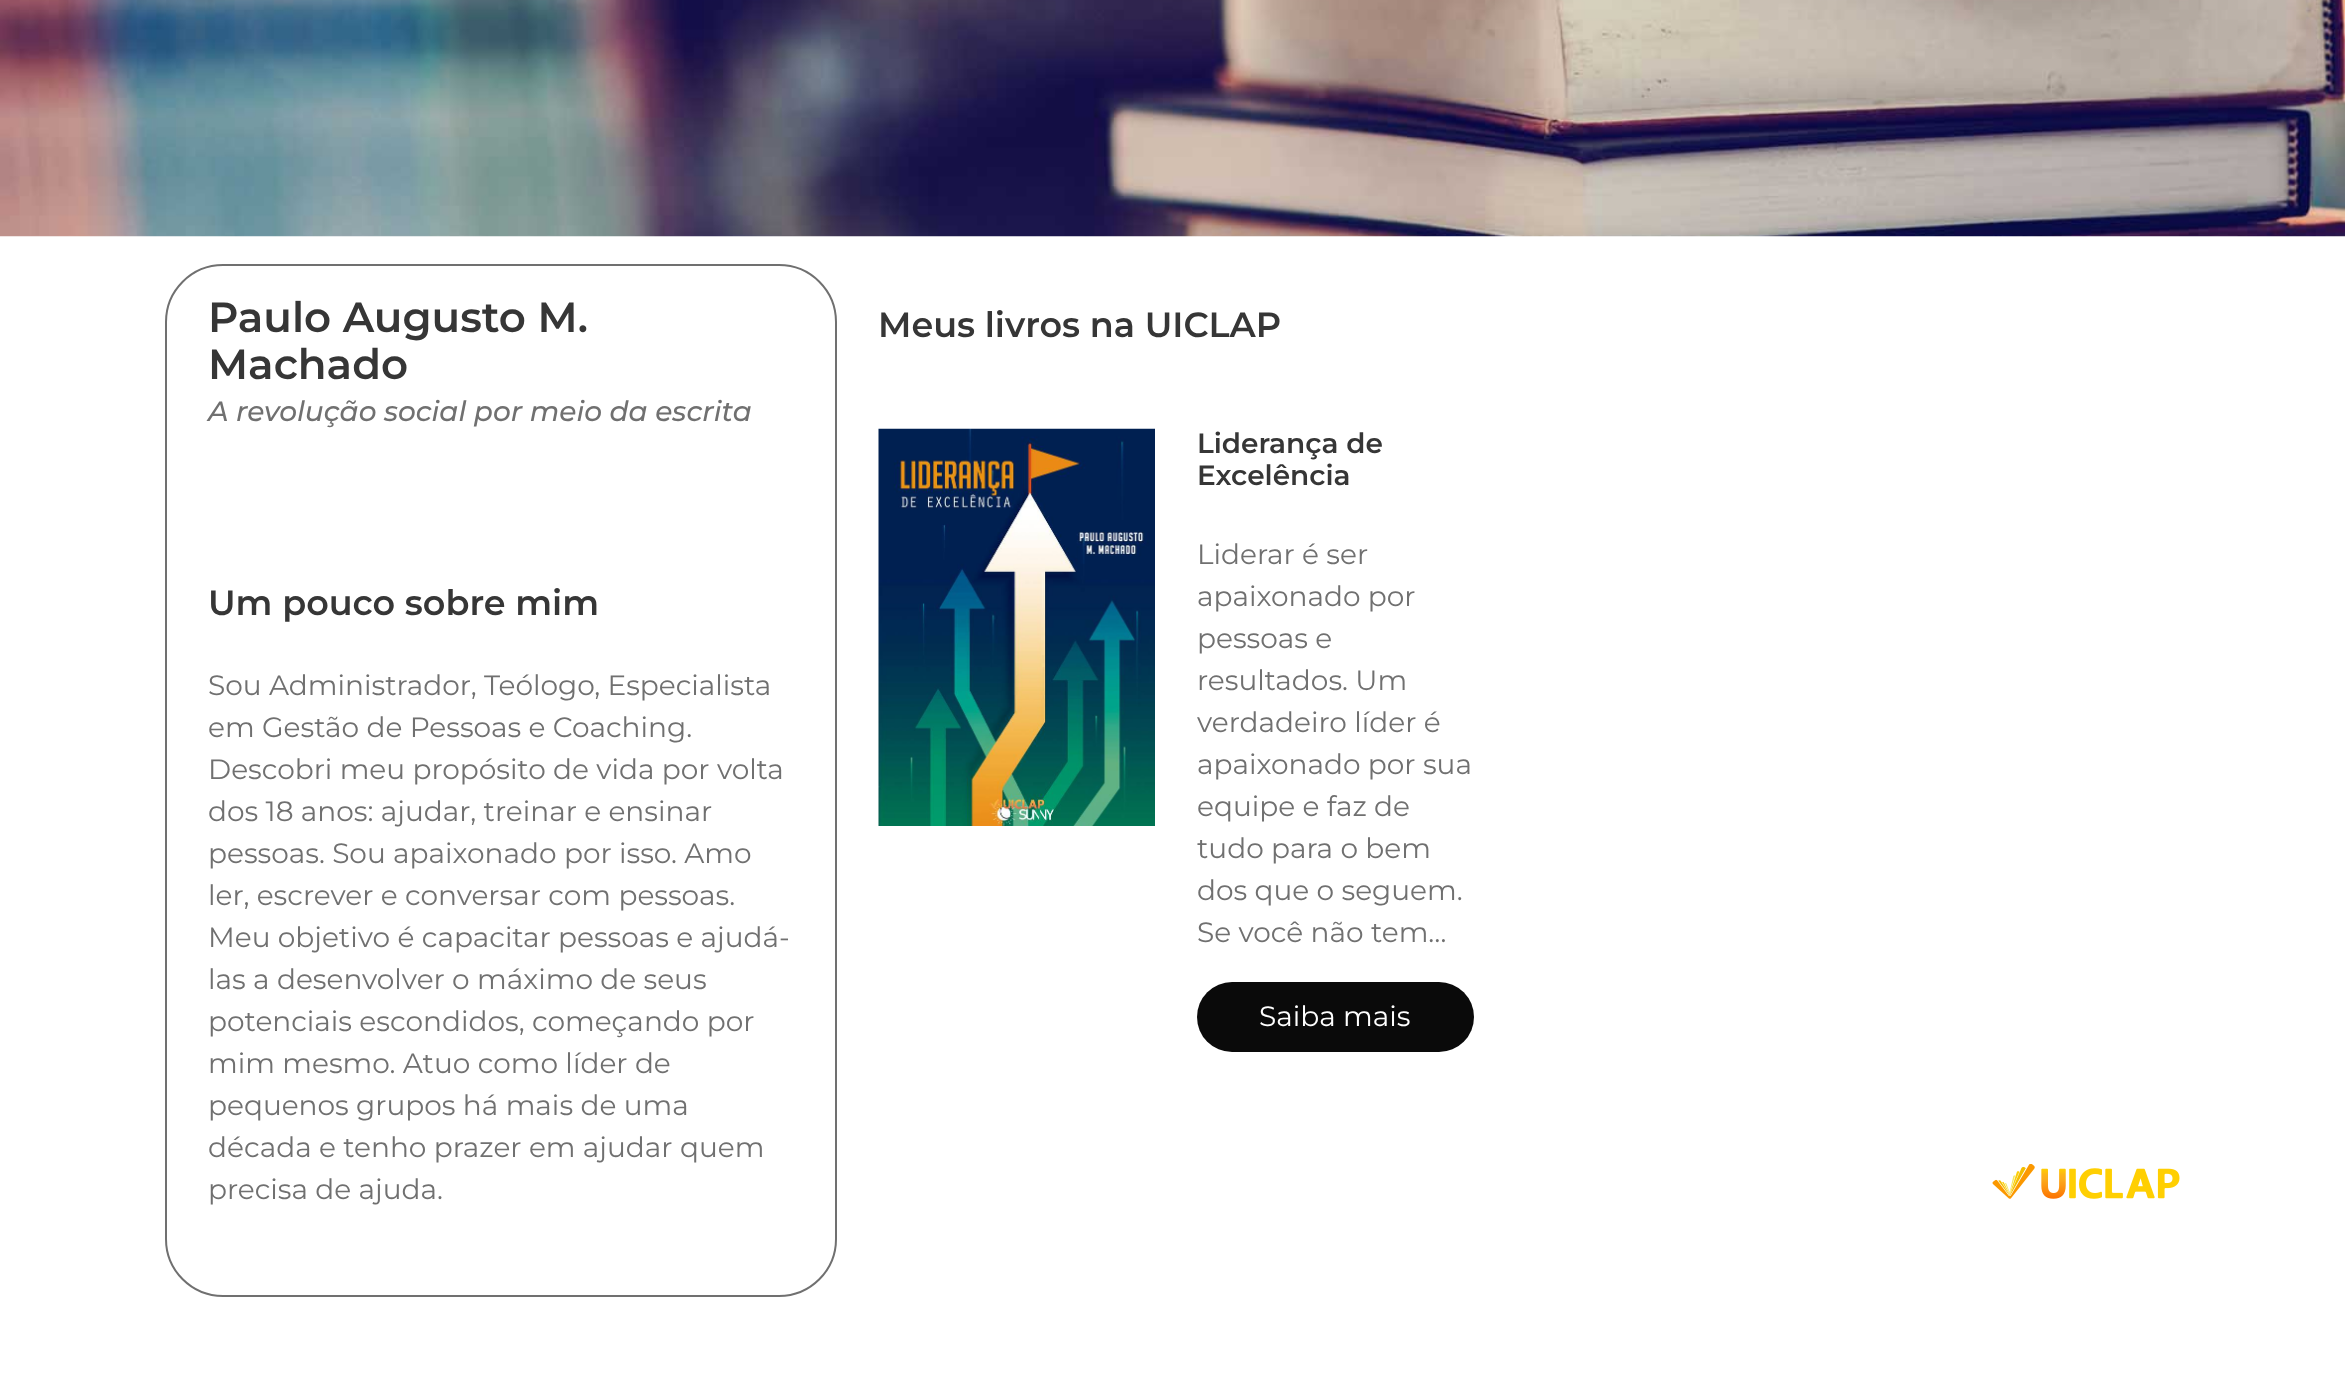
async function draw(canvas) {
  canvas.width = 2345
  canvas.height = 1385
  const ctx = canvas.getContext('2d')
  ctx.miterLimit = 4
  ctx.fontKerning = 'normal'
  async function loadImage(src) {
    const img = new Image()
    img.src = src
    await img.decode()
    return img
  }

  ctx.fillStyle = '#fff'
  ctx.fillRect(0, 0, 2345, 1385)
  ctx.drawImage(await loadImage('image0.png'), 0, 0, 2345, 237)
  ctx.beginPath()
  ctx.roundRect(166, 265, 670, 1031, 57)
  ctx.strokeStyle = '#707070'
  ctx.lineWidth = 2
  ctx.stroke()
  ctx.font = '600 42px Montserrat'
  ctx.fillStyle = '#363636'
  ctx.fillText('Paulo Augusto M.', 208, 332)
  ctx.fillText('Machado', 208, 379)
  ctx.font = 'italic 100 28px Montserrat'
  ctx.fillStyle = '#707070'
  ctx.fillText('A revolução social por meio da escrita', 208, 421)
  ctx.font = '600 35px Montserrat'
  ctx.fillStyle = '#363636'
  ctx.fillText('Um pouco sobre mim', 208, 615)
  ctx.font = '28px Montserrat'
  ctx.fillStyle = '#707070'
  ctx.fillText('Sou Administrador, Teólogo, Especialista', 208, 695)
  ctx.fillText('em Gestão de Pessoas e Coaching.', 208, 737)
  ctx.fillText('Descobri meu propósito de vida por volta', 208, 779)
  ctx.fillText('dos 18 anos: ajudar, treinar e ensinar', 208, 821)
  ctx.fillText('pessoas. Sou apaixonado por isso. Amo', 208, 863)
  ctx.fillText('ler, escrever e conversar com pessoas.', 208, 905)
  ctx.fillText('Meu objetivo é capacitar pessoas e ajudá-', 208, 947)
  ctx.fillText('las a desenvolver o máximo de seus', 208, 989)
  ctx.fillText('potenciais escondidos, começando por', 208, 1031)
  ctx.fillText('mim mesmo. Atuo como líder de', 208, 1073)
  ctx.fillText('pequenos grupos há mais de uma', 208, 1115)
  ctx.fillText('década e tenho prazer em ajudar quem', 208, 1157)
  ctx.fillText('precisa de ajuda.', 208, 1199)
  ctx.font = '600 35px Montserrat'
  ctx.fillStyle = '#363636'
  ctx.fillText('Meus livros na UICLAP', 878, 337)
  ctx.drawImage(await loadImage('image1.png'), 878, 428, 277, 398)
  ctx.font = '600 28px Montserrat'
  ctx.fillText('Liderança de', 1197, 453)
  ctx.fillText('Excelência', 1197, 485)
  ctx.font = '28px Montserrat'
  ctx.fillStyle = '#707070'
  ctx.fillText('Liderar é ser', 1197, 564)
  ctx.fillText('apaixonado por', 1197, 606)
  ctx.fillText('pessoas e', 1197, 648)
  ctx.fillText('resultados. Um', 1197, 690)
  ctx.fillText('verdadeiro líder é', 1197, 732)
  ctx.fillText('apaixonado por sua', 1197, 774)
  ctx.fillText('equipe e faz de', 1197, 816)
  ctx.fillText('tudo para o bem', 1197, 858)
  ctx.fillText('dos que o seguem.', 1197, 900)
  ctx.fillText('Se você não tem…', 1197, 942)
  ctx.fillStyle = '#0a0a0a'
  ctx.beginPath()
  ctx.roundRect(1197, 982, 277, 70, 35)
  ctx.fill()
  ctx.fillStyle = '#fff'
  ctx.fillText('Saiba mais', 1259, 1026)
  ctx.drawImage(await loadImage('image2.png'), 1992, 1164, 188, 35)
}

draw(document.querySelector('canvas'))
